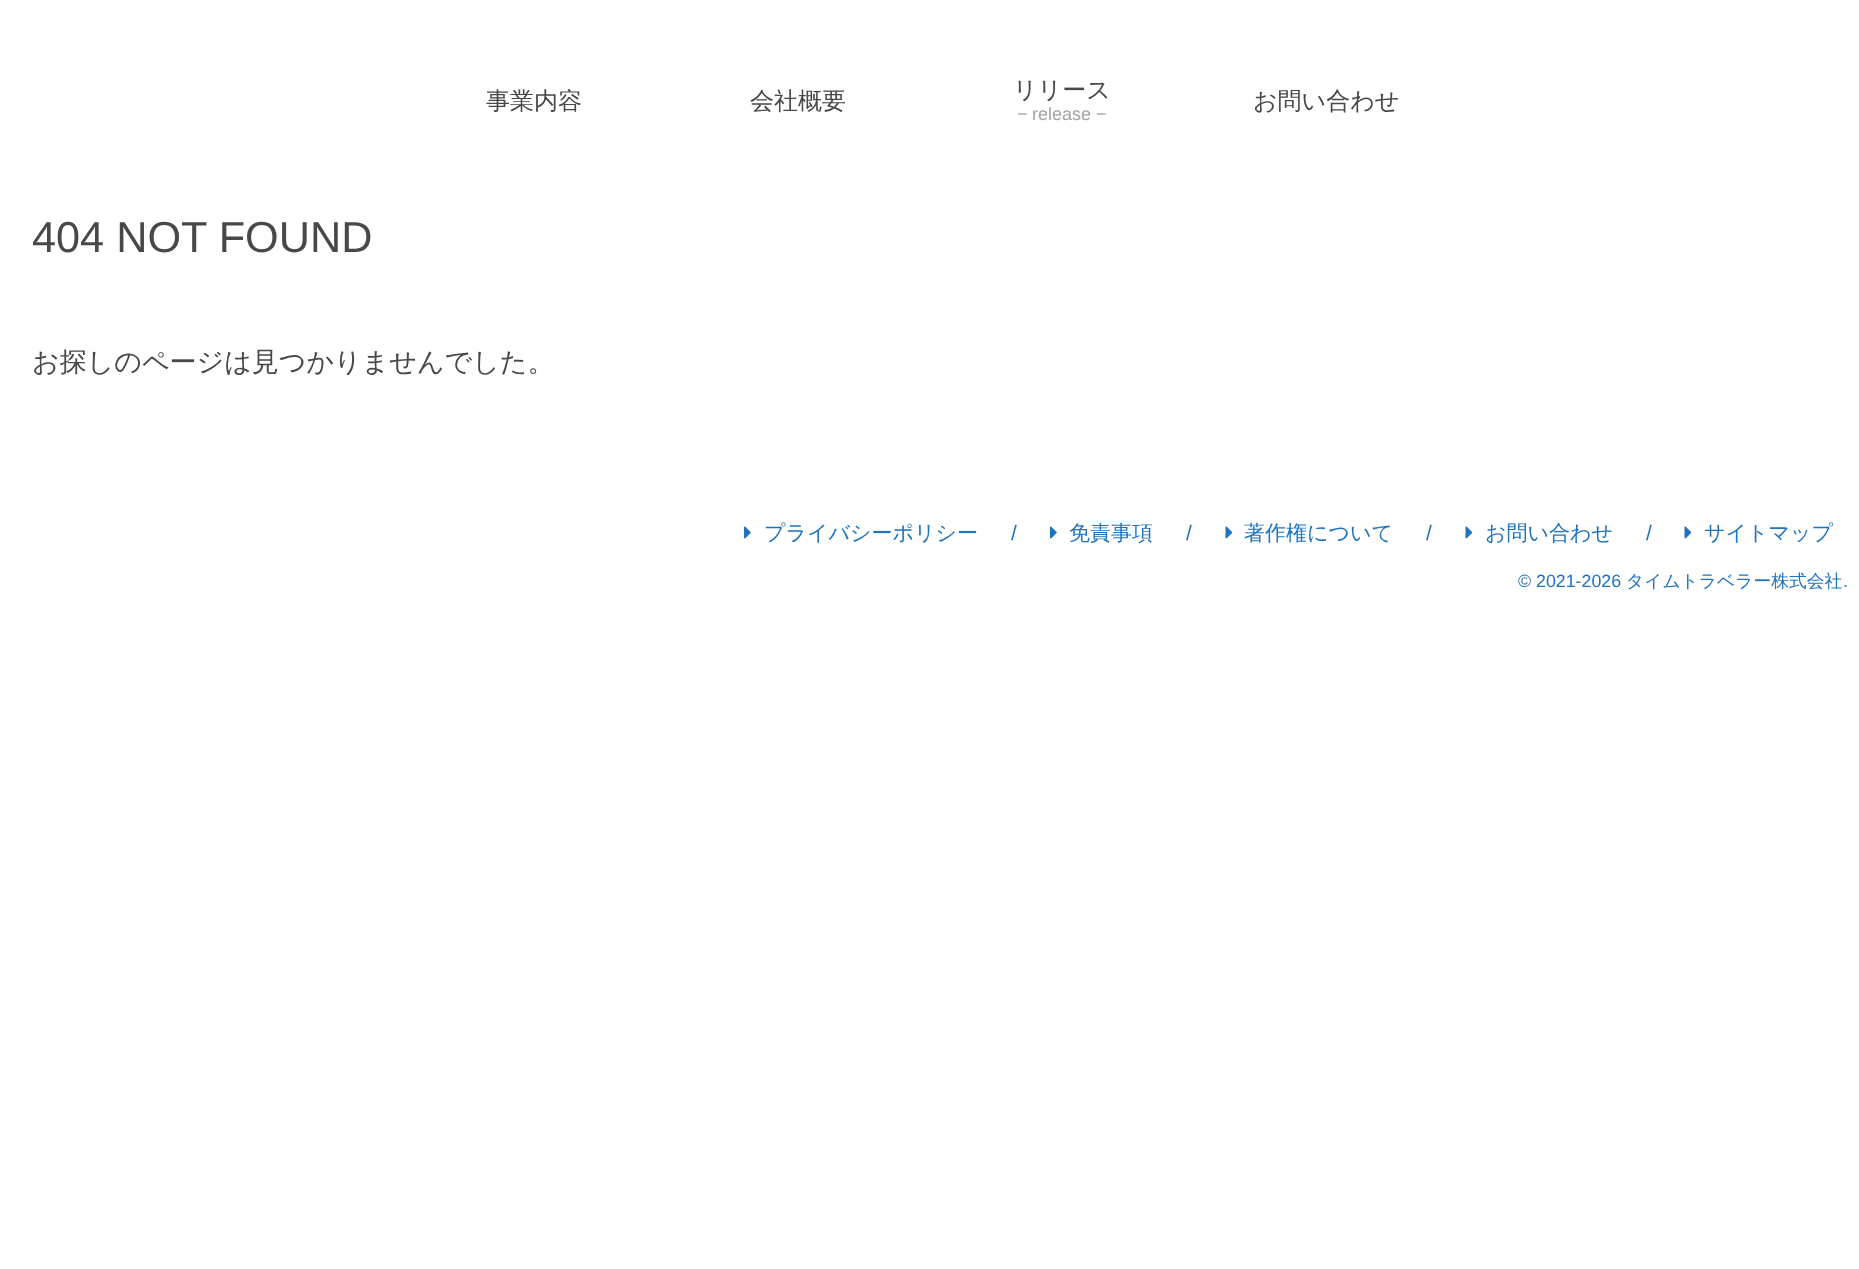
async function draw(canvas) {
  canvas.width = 1859
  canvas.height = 1269
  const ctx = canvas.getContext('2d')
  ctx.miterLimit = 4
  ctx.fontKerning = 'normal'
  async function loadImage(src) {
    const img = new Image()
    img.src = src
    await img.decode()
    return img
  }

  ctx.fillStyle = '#fff'
  ctx.fillRect(0, 0, 1859, 1269)
  ctx.font = '500 24px WenQuanYi Zen Hei'
  ctx.fillStyle = '#484848'
  ctx.fillText('事業内容', 486, 109)
  ctx.fillText('会社概要', 750, 109)
  ctx.fillText('リリース', 1013, 98)
  ctx.font = '18px Liberation Sans'
  ctx.fillStyle = '#a4a4a4'
  ctx.fillText('−', 1017, 120)
  ctx.fillText('release', 1032, 120)
  ctx.fillText('−', 1096, 120)
  ctx.font = '500 24px WenQuanYi Zen Hei'
  ctx.fillStyle = '#484848'
  ctx.fillText('お問い合わせ', 1253, 109)
  ctx.font = '43.25px Liberation Sans'
  ctx.fillText('404 NOT FOUND', 32, 252)
  ctx.font = '500 27px WenQuanYi Zen Hei'
  ctx.fillText('お探しのページは見つかりませんでした。', 32, 371)
  ctx.drawImage(await loadImage('image0.png'), 744, 526, 7, 13)
  ctx.font = '500 21px WenQuanYi Zen Hei'
  ctx.fillStyle = '#1e73be'
  ctx.fillText('プライバシーポリシー', 764, 540)
  ctx.font = '21px Liberation Sans'
  ctx.fillText('/', 1011, 540)
  ctx.drawImage(await loadImage('image0.png'), 1050, 526, 7, 13)
  ctx.font = '500 21px WenQuanYi Zen Hei'
  ctx.fillText('免責事項', 1069, 540)
  ctx.font = '21px Liberation Sans'
  ctx.fillText('/', 1186, 540)
  ctx.drawImage(await loadImage('image1.png'), 1225, 526, 8, 13)
  ctx.font = '500 21px WenQuanYi Zen Hei'
  ctx.fillText('著作権について', 1244, 540)
  ctx.font = '21px Liberation Sans'
  ctx.fillText('/', 1426, 540)
  ctx.drawImage(await loadImage('image1.png'), 1465, 526, 8, 13)
  ctx.font = '500 21px WenQuanYi Zen Hei'
  ctx.fillText('お問い合わせ', 1485, 540)
  ctx.font = '21px Liberation Sans'
  ctx.fillText('/', 1646, 540)
  ctx.drawImage(await loadImage('image1.png'), 1684, 526, 8, 13)
  ctx.font = '500 21px WenQuanYi Zen Hei'
  ctx.fillText('サイトマップ', 1704, 540)
  ctx.font = '17.8px Liberation Sans'
  ctx.fillText('© 2021-2026', 1518, 587)
  ctx.font = '500 17.8px WenQuanYi Zen Hei'
  ctx.fillText('タイムトラベラー株式会社', 1626, 587)
  ctx.font = '17.8px Liberation Sans'
  ctx.fillText('.', 1843, 587)
}

draw(document.querySelector('canvas'))
